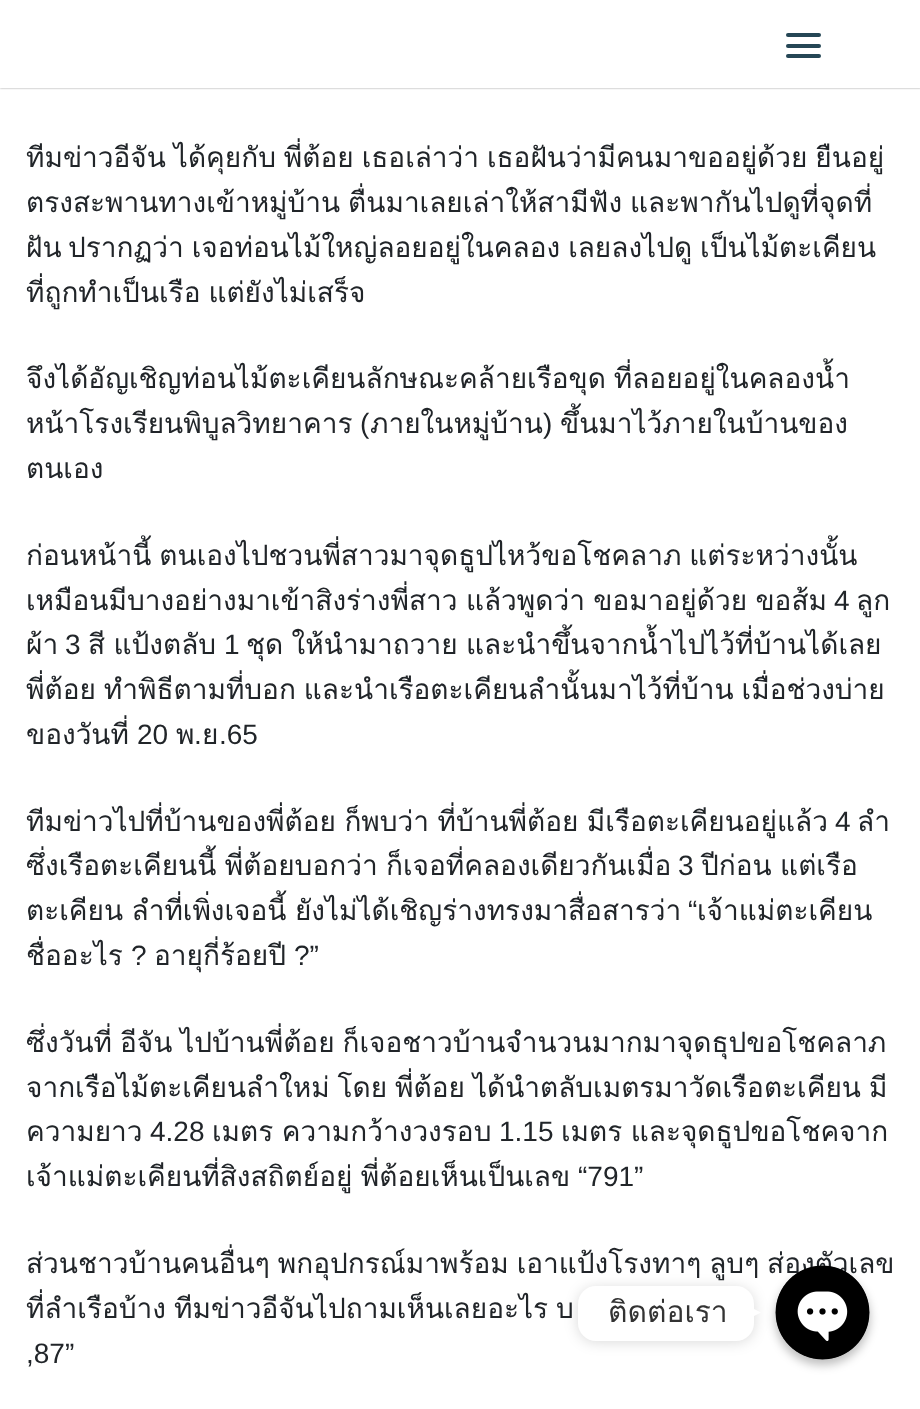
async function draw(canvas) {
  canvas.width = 920
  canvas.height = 1409
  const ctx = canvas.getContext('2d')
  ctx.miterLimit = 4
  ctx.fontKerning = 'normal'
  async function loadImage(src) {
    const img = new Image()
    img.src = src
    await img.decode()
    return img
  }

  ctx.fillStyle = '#fff'
  ctx.fillRect(0, 0, 920, 1409)
  ctx.fillStyle = '#00000066'
  ctx.filter = 'blur(1px)'
  ctx.beginPath()
  ctx.rect(0, 0, 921, 88)
  ctx.fill()
  ctx.filter = 'none'
  ctx.fillStyle = '#fff'
  ctx.fillRect(0, 0, 920, 88)
  ctx.fillStyle = '#254655'
  ctx.beginPath()
  ctx.roundRect(786, 33, 35, 4, 2)
  ctx.fill()
  ctx.beginPath()
  ctx.roundRect(786, 44, 35, 4, 2)
  ctx.fill()
  ctx.beginPath()
  ctx.roundRect(786, 54, 35, 4, 2)
  ctx.fill()
  ctx.wordSpacing = '-1.5px'
  ctx.font = '28px Loma'
  ctx.fillStyle = '#212529'
  ctx.fillText('ทีมข่าวอีจัน ได้คุยกับ พี่ต้อย เธอเล่าว่า เธอฝันว่ามีคนมาขออยู่ด้วย ยืนอยู่', 26, 167)
  ctx.fillText('ตรงสะพานทางเข้าหมู่บ้าน ตื่นมาเลยเล่าให้สามีฟัง และพากันไปดูที่จุดที่', 26, 212)
  ctx.wordSpacing = '0px'
  ctx.fillText('ฝัน', 26, 257)
  ctx.wordSpacing = '-1.5px'
  ctx.fillText('ปรากฏว่า เจอท่อนไม้ใหญ่ลอยอยู่ในคลอง เลยลงไปดู เป็นไม้ตะเคียน', 68, 257)
  ctx.fillText('ที่ถูกทำเป็นเรือ แต่ยังไม่เสร็จ', 26, 302)
  ctx.fillText('จึงได้อัญเชิญท่อนไม้ตะเคียนลักษณะคล้ายเรือขุด ที่ลอยอยู่ในคลองน้ำ', 26, 388)
  ctx.wordSpacing = '0px'
  ctx.fillText('หน้าโรงเรียนพิบูลวิทยาคาร', 26, 433)
  ctx.font = '28px Liberation Sans'
  ctx.fillText('(', 360, 433)
  ctx.font = '28px Loma'
  ctx.fillText('ภายในหมู่บ้าน', 370, 433)
  ctx.font = '28px Liberation Sans'
  ctx.fillText(')', 543, 433)
  ctx.font = '28px Loma'
  ctx.fillText('ขึ้นมาไว้ภายในบ้านของ', 560, 433)
  ctx.fillText('ตนเอง', 26, 478)
  ctx.wordSpacing = '-1.5px'
  ctx.fillText('ก่อนหน้านี้ ตนเองไปชวนพี่สาวมาจุดธูปไหว้ขอโชคลาภ แต่ระหว่างนั้น', 26, 565)
  ctx.wordSpacing = '-1px'
  ctx.fillText('เหมือนมีบางอย่างมาเข้าสิงร่างพี่สาว แล้วพูดว่า ขอมาอยู่ด้วย ขอส้ม', 26, 610)
  ctx.wordSpacing = '0px'
  ctx.font = '28px Liberation Sans'
  ctx.fillText('4', 834, 610)
  ctx.font = '28px Loma'
  ctx.fillText('ลูก', 856, 610)
  ctx.fillText('ผ้า', 26, 654)
  ctx.font = '28px Liberation Sans'
  ctx.fillText('3', 65, 654)
  ctx.wordSpacing = '-1px'
  ctx.font = '28px Loma'
  ctx.fillText('สี แป้งตลับ', 88, 654)
  ctx.wordSpacing = '0px'
  ctx.font = '28px Liberation Sans'
  ctx.fillText('1', 224, 654)
  ctx.wordSpacing = '-1px'
  ctx.font = '28px Loma'
  ctx.fillText('ชุด ให้นำมาถวาย และนำขึ้นจากน้ำไปไว้ที่บ้านได้เลย', 246, 654)
  ctx.wordSpacing = '-1.5px'
  ctx.fillText('พี่ต้อย ทำพิธีตามที่บอก และนำเรือตะเคียนลำนั้นมาไว้ที่บ้าน เมื่อช่วงบ่าย', 26, 699)
  ctx.wordSpacing = '0px'
  ctx.fillText('ของวันที่', 26, 744)
  ctx.font = '28px Liberation Sans'
  ctx.fillText('20', 137, 744)
  ctx.font = '28px Loma'
  ctx.fillText('พ', 176, 744)
  ctx.font = '28px Liberation Sans'
  ctx.fillText('.', 194, 744)
  ctx.font = '28px Loma'
  ctx.fillText('ย', 202, 744)
  ctx.font = '28px Liberation Sans'
  ctx.fillText('.65', 219, 744)
  ctx.wordSpacing = '-1px'
  ctx.font = '28px Loma'
  ctx.fillText('ทีมข่าวไปที่บ้านของพี่ต้อย ก็พบว่า ที่บ้านพี่ต้อย มีเรือตะเคียนอยู่แล้ว', 26, 831)
  ctx.wordSpacing = '0px'
  ctx.font = '28px Liberation Sans'
  ctx.fillText('4', 835, 831)
  ctx.font = '28px Loma'
  ctx.fillText('ลำ', 857, 831)
  ctx.wordSpacing = '-1px'
  ctx.fillText('ซึ่งเรือตะเคียนนี้ พี่ต้อยบอกว่า ก็เจอที่คลองเดียวกันเมื่อ', 26, 875)
  ctx.wordSpacing = '0px'
  ctx.font = '28px Liberation Sans'
  ctx.fillText('3', 678, 875)
  ctx.wordSpacing = '-1px'
  ctx.font = '28px Loma'
  ctx.fillText('ปีก่อน แต่เรือ', 701, 875)
  ctx.fillText('ตะเคียน ลำที่เพิ่งเจอนี้ ยังไม่ได้เชิญร่างทรงมาสื่อสารว่า', 26, 920)
  ctx.wordSpacing = '0px'
  ctx.font = '28px Liberation Sans'
  ctx.fillText('“', 688, 920)
  ctx.font = '28px Loma'
  ctx.fillText('เจ้าแม่ตะเคียน', 697, 920)
  ctx.fillText('ชื่ออะไร', 26, 965)
  ctx.font = '28px Liberation Sans'
  ctx.fillText('?', 131, 965)
  ctx.font = '28px Loma'
  ctx.fillText('อายุกี่ร้อยปี', 154, 965)
  ctx.font = '28px Liberation Sans'
  ctx.fillText('?”', 294, 965)
  ctx.wordSpacing = '-1.5px'
  ctx.font = '28px Loma'
  ctx.fillText('ซึ่งวันที่ อีจัน ไปบ้านพี่ต้อย ก็เจอชาวบ้านจำนวนมากมาจุดธุปขอโชคลาภ', 26, 1052)
  ctx.fillText('จากเรือไม้ตะเคียนลำใหม่ โดย พี่ต้อย ได้นำตลับเมตรมาวัดเรือตะเคียน มี', 26, 1097)
  ctx.wordSpacing = '0px'
  ctx.fillText('ความยาว', 26, 1141)
  ctx.font = '28px Liberation Sans'
  ctx.fillText('4.28', 150, 1141)
  ctx.wordSpacing = '-1px'
  ctx.font = '28px Loma'
  ctx.fillText('เมตร ความกว้างวงรอบ', 212, 1141)
  ctx.wordSpacing = '0px'
  ctx.font = '28px Liberation Sans'
  ctx.fillText('1.15', 499, 1141)
  ctx.wordSpacing = '-1px'
  ctx.font = '28px Loma'
  ctx.fillText('เมตร และจุดธูปขอโชคจาก', 561, 1141)
  ctx.fillText('เจ้าแม่ตะเคียนที่สิงสถิตย์อยู่ พี่ต้อยเห็นเป็นเลข', 26, 1186)
  ctx.wordSpacing = '0px'
  ctx.font = '28px Liberation Sans'
  ctx.fillText('“791”', 578, 1186)
  ctx.wordSpacing = '-1.5px'
  ctx.font = '28px Loma'
  ctx.fillText('ส่วนชาวบ้านคนอื่นๆ พกอุปกรณ์มาพร้อม เอาแป้งโรงทาๆ ลูบๆ ส่องตัวเลข', 26, 1273)
  ctx.wordSpacing = '0px'
  ctx.fillText('ที่ลำเรือบ้าง', 26, 1318)
  ctx.fillText('ทีมข่าวอีจันไปถามเห็นเลยอะไร', 174, 1318)
  ctx.fillText('บ', 556, 1318)
  ctx.font = '28px Liberation Sans'
  ctx.fillText(',87”', 26, 1363)
  ctx.fillStyle = '#00000040'
  ctx.filter = 'blur(5px)'
  ctx.beginPath()
  ctx.roundRect(775, 1271, 95, 94, 47)
  ctx.fill()
  ctx.filter = 'none'
  ctx.drawImage(await loadImage('image0.png'), 775, 1265, 95, 95)
  ctx.fillStyle = '#00000026'
  ctx.filter = 'blur(7px)'
  ctx.beginPath()
  ctx.roundRect(578, 1288, 176, 54, 18)
  ctx.fill()
  ctx.filter = 'none'
  ctx.fillStyle = '#fff'
  ctx.beginPath()
  ctx.roundRect(578, 1286, 176, 55, 18)
  ctx.fill()
  ctx.font = '30px Loma'
  ctx.fillStyle = '#333'
  ctx.fillText('ติดต่อเรา', 608, 1322)
  ctx.fillStyle = '#fff'
  ctx.beginPath()
  ctx.moveTo(744, 1321)
  ctx.lineTo(744, 1304)
  ctx.lineTo(761, 1312.5)
  ctx.closePath()
  ctx.fill()
}

draw(document.querySelector('canvas'))
